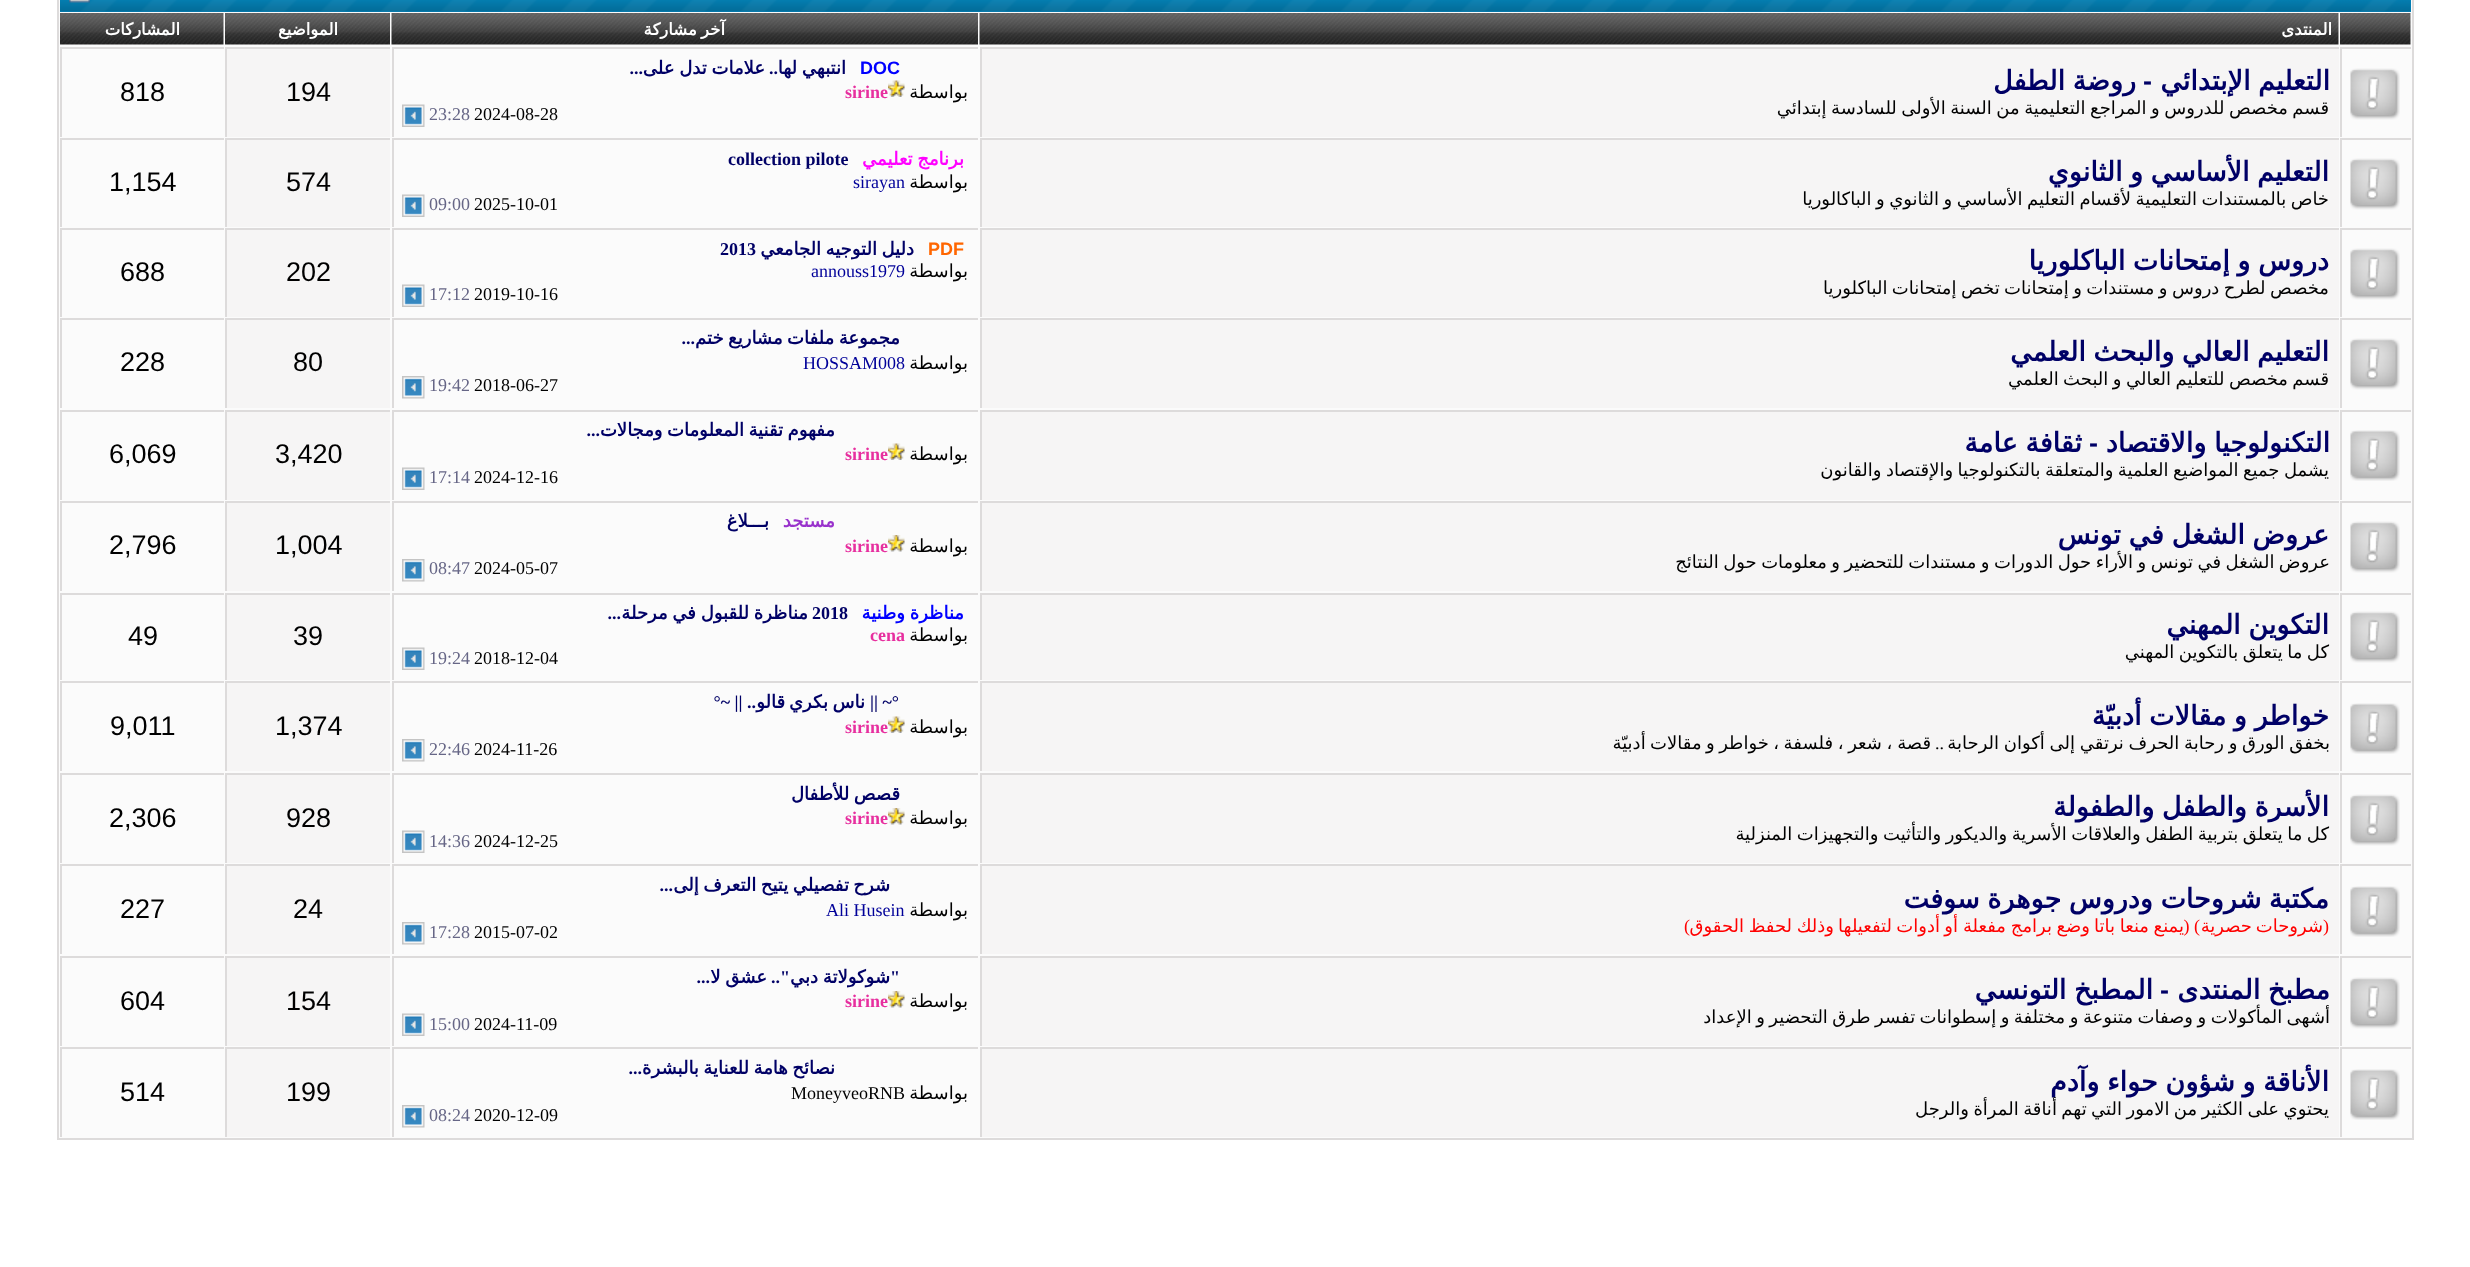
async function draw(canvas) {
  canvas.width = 2470
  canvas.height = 1267
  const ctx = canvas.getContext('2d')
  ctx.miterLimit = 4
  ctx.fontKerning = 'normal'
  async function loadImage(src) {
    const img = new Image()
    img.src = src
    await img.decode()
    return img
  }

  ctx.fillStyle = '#fff'
  ctx.fillRect(0, 0, 2470, 1267)
  ctx.fillStyle = '#fbfbfb'
  ctx.beginPath()
  ctx.rect(58, -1, 2355, 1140)
  ctx.fill()
  ctx.strokeStyle = '#dddbdb'
  ctx.lineWidth = 2
  ctx.stroke()
  ctx.fillStyle = '#0584bf'
  ctx.fillRect(60, 0, 2351, 12)
  ctx.drawImage(await loadImage('image0.png'), 60, 0, 2351, 12)
  ctx.drawImage(await loadImage('image1.png'), 69, 0, 21, 3)
  ctx.fillStyle = '#fff'
  ctx.fillRect(2340, 14, 71, 31)
  ctx.drawImage(await loadImage('image2.png'), 2340, 13, 71, 32)
  ctx.fillRect(980, 14, 1359, 31)
  ctx.drawImage(await loadImage('image3.png'), 979, 13, 1360, 32)
  ctx.direction = 'rtl'
  ctx.font = 'bold 16.5px DejaVu Sans'
  ctx.fillText('المنتدى', 2332, 35)
  ctx.fillRect(392, 44, 586, 1)
  ctx.drawImage(await loadImage('image4.png'), 391, 13, 587, 32)
  ctx.wordSpacing = '-1px'
  ctx.fillText('آخر مشاركة', 725, 35)
  ctx.fillRect(225, 44, 165, 1)
  ctx.drawImage(await loadImage('image5.png'), 225, 13, 165, 32)
  ctx.wordSpacing = '0px'
  ctx.fillText('المواضيع', 338, 35)
  ctx.fillRect(60, 14, 164, 31)
  ctx.drawImage(await loadImage('image6.png'), 60, 13, 164, 32)
  ctx.fillText('المشاركات', 180, 35)
  ctx.fillStyle = '#dddbdb'
  ctx.fillRect(2340, 47, 71, 2)
  ctx.fillRect(2340, 47, 2, 90)
  ctx.drawImage(await loadImage('image7.png'), 2350, 68, 50, 52)
  ctx.fillStyle = '#f6f5f5'
  ctx.fillRect(982, 49, 1357, 88)
  ctx.fillStyle = '#dddbdb'
  ctx.fillRect(980, 47, 1359, 2)
  ctx.fillRect(980, 47, 2, 90)
  ctx.wordSpacing = '-1px'
  ctx.font = 'bold 27px DejaVu Sans'
  ctx.fillStyle = '#006'
  ctx.fillText('التعليم الإبتدائي', 2330, 90)
  ctx.wordSpacing = '0px'
  ctx.font = 'bold 27px Liberation Sans'
  ctx.fillText('-', 2152, 90)
  ctx.wordSpacing = '-1px'
  ctx.font = 'bold 27px DejaVu Sans'
  ctx.fillText('روضة الطفل', 2136, 90)
  ctx.wordSpacing = '-1.25px'
  ctx.font = '18px DejaVu Sans'
  ctx.fillStyle = '#000'
  ctx.fillText('قسم مخصص للدروس و المراجع التعليمية من السنة الأولى للسادسة إبتدائي', 2329, 114)
  ctx.fillStyle = '#dddbdb'
  ctx.fillRect(392, 47, 586, 2)
  ctx.fillRect(392, 47, 2, 90)
  ctx.wordSpacing = '0px'
  ctx.direction = 'ltr'
  ctx.font = 'bold 18px Liberation Sans'
  ctx.fillStyle = '#00f'
  ctx.fillText('DOC', 860, 74)
  ctx.wordSpacing = '-1px'
  ctx.direction = 'rtl'
  ctx.font = 'bold 18px DejaVu Sans'
  ctx.fillStyle = '#006'
  ctx.fillText('انتبهي لها', 846, 74)
  ctx.wordSpacing = '0px'
  ctx.font = 'bold 18px Liberation Serif'
  ctx.fillText('..', 778, 74)
  ctx.wordSpacing = '-1px'
  ctx.font = 'bold 18px DejaVu Sans'
  ctx.fillText('علامات تدل على', 765, 74)
  ctx.wordSpacing = '0px'
  ctx.font = 'bold 18px Liberation Serif'
  ctx.fillText('...', 643, 74)
  ctx.font = '18px DejaVu Sans'
  ctx.fillStyle = '#000'
  ctx.fillText('بواسطة', 968, 98)
  ctx.drawImage(await loadImage('image8.png'), 888, 80, 17, 17)
  ctx.direction = 'ltr'
  ctx.font = 'bold 18px Liberation Serif'
  ctx.fillStyle = '#e72f9f'
  ctx.fillText('sirine', 845, 98)
  ctx.font = '18px Liberation Serif'
  ctx.fillStyle = '#000'
  ctx.fillText('2024-08-28', 474, 120)
  ctx.fillStyle = '#666686'
  ctx.fillText('23:28', 429, 120)
  ctx.drawImage(await loadImage('image9.png'), 402, 104, 23, 23)
  ctx.fillStyle = '#f6f5f5'
  ctx.fillRect(227, 49, 163, 88)
  ctx.fillStyle = '#dddbdb'
  ctx.fillRect(225, 47, 165, 2)
  ctx.fillRect(225, 47, 2, 90)
  ctx.font = '27px Liberation Sans'
  ctx.fillStyle = '#000'
  ctx.fillText('194', 286, 101)
  ctx.fillStyle = '#dddbdb'
  ctx.fillRect(60, 47, 164, 2)
  ctx.fillRect(60, 47, 2, 90)
  ctx.fillStyle = '#000'
  ctx.fillText('818', 120, 101)
  ctx.fillStyle = '#dddbdb'
  ctx.fillRect(2340, 138, 71, 2)
  ctx.fillRect(2340, 138, 2, 89)
  ctx.drawImage(await loadImage('image7.png'), 2350, 158, 50, 52)
  ctx.fillStyle = '#f6f5f5'
  ctx.fillRect(982, 140, 1357, 87)
  ctx.fillStyle = '#dddbdb'
  ctx.fillRect(980, 138, 1359, 2)
  ctx.fillRect(980, 138, 2, 89)
  ctx.wordSpacing = '-1px'
  ctx.direction = 'rtl'
  ctx.font = 'bold 27px DejaVu Sans'
  ctx.fillStyle = '#006'
  ctx.fillText('التعليم الأساسي و الثانوي', 2329, 181)
  ctx.wordSpacing = '-1.25px'
  ctx.font = '18px DejaVu Sans'
  ctx.fillStyle = '#000'
  ctx.fillText('خاص بالمستندات التعليمية لأقسام التعليم الأساسي و الثانوي و الباكالوريا', 2329, 205)
  ctx.fillStyle = '#dddbdb'
  ctx.fillRect(392, 138, 586, 2)
  ctx.fillRect(392, 138, 2, 89)
  ctx.wordSpacing = '-1px'
  ctx.font = 'bold 18px DejaVu Sans'
  ctx.fillStyle = '#f0f'
  ctx.fillText('برنامج تعليمي', 964, 165)
  ctx.wordSpacing = '0px'
  ctx.direction = 'ltr'
  ctx.font = 'bold 18px Liberation Serif'
  ctx.fillStyle = '#006'
  ctx.fillText('collection pilote', 728, 165)
  ctx.direction = 'rtl'
  ctx.font = '18px DejaVu Sans'
  ctx.fillStyle = '#000'
  ctx.fillText('بواسطة', 968, 188)
  ctx.direction = 'ltr'
  ctx.font = '18px Liberation Serif'
  ctx.fillStyle = '#009'
  ctx.fillText('sirayan', 853, 188)
  ctx.fillStyle = '#000'
  ctx.fillText('2025-10-01', 474, 210)
  ctx.fillStyle = '#666686'
  ctx.fillText('09:00', 429, 210)
  ctx.drawImage(await loadImage('image9.png'), 402, 194, 23, 23)
  ctx.fillStyle = '#f6f5f5'
  ctx.fillRect(227, 140, 163, 87)
  ctx.fillStyle = '#dddbdb'
  ctx.fillRect(225, 138, 165, 2)
  ctx.fillRect(225, 138, 2, 89)
  ctx.font = '27px Liberation Sans'
  ctx.fillStyle = '#000'
  ctx.fillText('574', 286, 191)
  ctx.fillStyle = '#dddbdb'
  ctx.fillRect(60, 138, 164, 2)
  ctx.fillRect(60, 138, 2, 89)
  ctx.fillStyle = '#000'
  ctx.fillText('1,154', 109, 191)
  ctx.fillStyle = '#dddbdb'
  ctx.fillRect(2340, 228, 71, 2)
  ctx.fillRect(2340, 228, 2, 89)
  ctx.drawImage(await loadImage('image7.png'), 2350, 248, 50, 52)
  ctx.fillStyle = '#f6f5f5'
  ctx.fillRect(982, 230, 1357, 87)
  ctx.fillStyle = '#dddbdb'
  ctx.fillRect(980, 228, 1359, 2)
  ctx.fillRect(980, 228, 2, 89)
  ctx.wordSpacing = '-1px'
  ctx.direction = 'rtl'
  ctx.font = 'bold 27px DejaVu Sans'
  ctx.fillStyle = '#006'
  ctx.fillText('دروس و إمتحانات الباكلوريا', 2329, 270)
  ctx.wordSpacing = '-1.25px'
  ctx.font = '18px DejaVu Sans'
  ctx.fillStyle = '#000'
  ctx.fillText('مخصص لطرح دروس و مستندات و إمتحانات تخص إمتحانات الباكلوريا', 2329, 294)
  ctx.fillStyle = '#dddbdb'
  ctx.fillRect(392, 228, 586, 2)
  ctx.fillRect(392, 228, 2, 89)
  ctx.wordSpacing = '0px'
  ctx.direction = 'ltr'
  ctx.font = 'bold 18px Liberation Sans'
  ctx.fillStyle = '#f60'
  ctx.fillText('PDF', 928, 255)
  ctx.wordSpacing = '-1.25px'
  ctx.direction = 'rtl'
  ctx.font = 'bold 18px DejaVu Sans'
  ctx.fillStyle = '#006'
  ctx.fillText('دليل التوجيه الجامعي', 914, 255)
  ctx.wordSpacing = '0px'
  ctx.direction = 'ltr'
  ctx.font = 'bold 18px Liberation Serif'
  ctx.fillText('2013', 720, 255)
  ctx.direction = 'rtl'
  ctx.font = '18px DejaVu Sans'
  ctx.fillStyle = '#000'
  ctx.fillText('بواسطة', 968, 277)
  ctx.direction = 'ltr'
  ctx.font = '18px Liberation Serif'
  ctx.fillStyle = '#009'
  ctx.fillText('annouss1979', 811, 277)
  ctx.fillStyle = '#000'
  ctx.fillText('2019-10-16', 474, 300)
  ctx.fillStyle = '#666686'
  ctx.fillText('17:12', 429, 300)
  ctx.drawImage(await loadImage('image9.png'), 402, 284, 23, 23)
  ctx.fillStyle = '#f6f5f5'
  ctx.fillRect(227, 230, 163, 87)
  ctx.fillStyle = '#dddbdb'
  ctx.fillRect(225, 228, 165, 2)
  ctx.fillRect(225, 228, 2, 89)
  ctx.font = '27px Liberation Sans'
  ctx.fillStyle = '#000'
  ctx.fillText('202', 286, 281)
  ctx.fillStyle = '#dddbdb'
  ctx.fillRect(60, 228, 164, 2)
  ctx.fillRect(60, 228, 2, 89)
  ctx.fillStyle = '#000'
  ctx.fillText('688', 120, 281)
  ctx.fillStyle = '#dddbdb'
  ctx.fillRect(2340, 318, 71, 2)
  ctx.fillRect(2340, 318, 2, 90)
  ctx.drawImage(await loadImage('image7.png'), 2350, 338, 50, 52)
  ctx.fillStyle = '#f6f5f5'
  ctx.fillRect(982, 320, 1357, 88)
  ctx.fillStyle = '#dddbdb'
  ctx.fillRect(980, 318, 1359, 2)
  ctx.fillRect(980, 318, 2, 90)
  ctx.wordSpacing = '-1px'
  ctx.direction = 'rtl'
  ctx.font = 'bold 27px DejaVu Sans'
  ctx.fillStyle = '#006'
  ctx.fillText('التعليم العالي والبحث العلمي', 2329, 361)
  ctx.wordSpacing = '-1.25px'
  ctx.font = '18px DejaVu Sans'
  ctx.fillStyle = '#000'
  ctx.fillText('قسم مخصص للتعليم العالي و البحث العلمي', 2329, 385)
  ctx.fillStyle = '#dddbdb'
  ctx.fillRect(392, 318, 586, 2)
  ctx.fillRect(392, 318, 2, 90)
  ctx.font = 'bold 18px DejaVu Sans'
  ctx.fillStyle = '#006'
  ctx.fillText('مجموعة ملفات مشاريع ختم', 900, 344)
  ctx.wordSpacing = '0px'
  ctx.font = 'bold 18px Liberation Serif'
  ctx.fillText('...', 695, 344)
  ctx.font = '18px DejaVu Sans'
  ctx.fillStyle = '#000'
  ctx.fillText('بواسطة', 968, 369)
  ctx.direction = 'ltr'
  ctx.font = '18px Liberation Serif'
  ctx.fillStyle = '#009'
  ctx.fillText('HOSSAM008', 803, 369)
  ctx.fillStyle = '#000'
  ctx.fillText('2018-06-27', 474, 391)
  ctx.fillStyle = '#666686'
  ctx.fillText('19:42', 429, 391)
  ctx.drawImage(await loadImage('image10.png'), 402, 376, 23, 23)
  ctx.fillStyle = '#f6f5f5'
  ctx.fillRect(227, 320, 163, 88)
  ctx.fillStyle = '#dddbdb'
  ctx.fillRect(225, 318, 165, 2)
  ctx.fillRect(225, 318, 2, 90)
  ctx.font = '27px Liberation Sans'
  ctx.fillStyle = '#000'
  ctx.fillText('80', 293, 371)
  ctx.fillStyle = '#dddbdb'
  ctx.fillRect(60, 318, 164, 2)
  ctx.fillRect(60, 318, 2, 90)
  ctx.fillStyle = '#000'
  ctx.fillText('228', 120, 371)
  ctx.fillStyle = '#dddbdb'
  ctx.fillRect(2340, 410, 71, 2)
  ctx.fillRect(2340, 410, 2, 90)
  ctx.drawImage(await loadImage('image11.png'), 2350, 430, 50, 51)
  ctx.fillStyle = '#f6f5f5'
  ctx.fillRect(982, 412, 1357, 88)
  ctx.fillStyle = '#dddbdb'
  ctx.fillRect(980, 410, 1359, 2)
  ctx.fillRect(980, 410, 2, 90)
  ctx.wordSpacing = '-1px'
  ctx.direction = 'rtl'
  ctx.font = 'bold 27px DejaVu Sans'
  ctx.fillStyle = '#006'
  ctx.fillText('التكنولوجيا والاقتصاد', 2330, 452)
  ctx.wordSpacing = '0px'
  ctx.font = 'bold 27px Liberation Sans'
  ctx.fillText('-', 2098, 452)
  ctx.wordSpacing = '-1px'
  ctx.font = 'bold 27px DejaVu Sans'
  ctx.fillText('ثقافة عامة', 2082, 452)
  ctx.wordSpacing = '-1.25px'
  ctx.font = '18px DejaVu Sans'
  ctx.fillStyle = '#000'
  ctx.fillText('يشمل جميع المواضيع العلمية والمتعلقة بالتكنولوجيا والإقتصاد والقانون', 2329, 476)
  ctx.fillStyle = '#dddbdb'
  ctx.fillRect(392, 410, 586, 2)
  ctx.fillRect(392, 410, 2, 90)
  ctx.font = 'bold 18px DejaVu Sans'
  ctx.fillStyle = '#006'
  ctx.fillText('مفهوم تقنية المعلومات ومجالات', 835, 436)
  ctx.wordSpacing = '0px'
  ctx.font = 'bold 18px Liberation Serif'
  ctx.fillText('...', 600, 436)
  ctx.font = '18px DejaVu Sans'
  ctx.fillStyle = '#000'
  ctx.fillText('بواسطة', 968, 460)
  ctx.drawImage(await loadImage('image8.png'), 888, 443, 17, 17)
  ctx.direction = 'ltr'
  ctx.font = 'bold 18px Liberation Serif'
  ctx.fillStyle = '#e72f9f'
  ctx.fillText('sirine', 845, 460)
  ctx.font = '18px Liberation Serif'
  ctx.fillStyle = '#000'
  ctx.fillText('2024-12-16', 474, 483)
  ctx.fillStyle = '#666686'
  ctx.fillText('17:14', 429, 483)
  ctx.drawImage(await loadImage('image9.png'), 402, 467, 23, 23)
  ctx.fillStyle = '#f6f5f5'
  ctx.fillRect(227, 412, 163, 88)
  ctx.fillStyle = '#dddbdb'
  ctx.fillRect(225, 410, 165, 2)
  ctx.fillRect(225, 410, 2, 90)
  ctx.font = '27px Liberation Sans'
  ctx.fillStyle = '#000'
  ctx.fillText('3,420', 275, 463)
  ctx.fillStyle = '#dddbdb'
  ctx.fillRect(60, 410, 164, 2)
  ctx.fillRect(60, 410, 2, 90)
  ctx.fillStyle = '#000'
  ctx.fillText('6,069', 109, 463)
  ctx.fillStyle = '#dddbdb'
  ctx.fillRect(2340, 501, 71, 2)
  ctx.fillRect(2340, 501, 2, 90)
  ctx.drawImage(await loadImage('image7.png'), 2350, 521, 50, 52)
  ctx.fillStyle = '#f6f5f5'
  ctx.fillRect(982, 503, 1357, 88)
  ctx.fillStyle = '#dddbdb'
  ctx.fillRect(980, 501, 1359, 2)
  ctx.fillRect(980, 501, 2, 90)
  ctx.wordSpacing = '-1px'
  ctx.direction = 'rtl'
  ctx.font = 'bold 27px DejaVu Sans'
  ctx.fillStyle = '#006'
  ctx.fillText('عروض الشغل في تونس', 2329, 544)
  ctx.wordSpacing = '-1.25px'
  ctx.font = '18px DejaVu Sans'
  ctx.fillStyle = '#000'
  ctx.fillText('عروض الشغل في تونس و الأراء حول الدورات و مستندات للتحضير و معلومات حول النتائج', 2330, 568)
  ctx.fillStyle = '#dddbdb'
  ctx.fillRect(392, 501, 586, 2)
  ctx.fillRect(392, 501, 2, 90)
  ctx.wordSpacing = '0px'
  ctx.font = 'bold 18px DejaVu Sans'
  ctx.fillStyle = '#9932cc'
  ctx.fillText('مستجد', 835, 527)
  ctx.fillStyle = '#006'
  ctx.fillText('بـــلاغ', 769, 527)
  ctx.font = '18px DejaVu Sans'
  ctx.fillStyle = '#000'
  ctx.fillText('بواسطة', 968, 552)
  ctx.drawImage(await loadImage('image12.png'), 888, 535, 17, 17)
  ctx.direction = 'ltr'
  ctx.font = 'bold 18px Liberation Serif'
  ctx.fillStyle = '#e72f9f'
  ctx.fillText('sirine', 845, 552)
  ctx.font = '18px Liberation Serif'
  ctx.fillStyle = '#000'
  ctx.fillText('2024-05-07', 474, 574)
  ctx.fillStyle = '#666686'
  ctx.fillText('08:47', 429, 574)
  ctx.drawImage(await loadImage('image10.png'), 402, 559, 23, 23)
  ctx.fillStyle = '#f6f5f5'
  ctx.fillRect(227, 503, 163, 88)
  ctx.fillStyle = '#dddbdb'
  ctx.fillRect(225, 501, 165, 2)
  ctx.fillRect(225, 501, 2, 90)
  ctx.font = '27px Liberation Sans'
  ctx.fillStyle = '#000'
  ctx.fillText('1,004', 275, 554)
  ctx.fillStyle = '#dddbdb'
  ctx.fillRect(60, 501, 164, 2)
  ctx.fillRect(60, 501, 2, 90)
  ctx.fillStyle = '#000'
  ctx.fillText('2,796', 109, 554)
  ctx.fillStyle = '#dddbdb'
  ctx.fillRect(2340, 593, 71, 2)
  ctx.fillRect(2340, 593, 2, 87)
  ctx.drawImage(await loadImage('image7.png'), 2350, 611, 50, 52)
  ctx.fillStyle = '#f6f5f5'
  ctx.fillRect(982, 595, 1357, 85)
  ctx.fillStyle = '#dddbdb'
  ctx.fillRect(980, 593, 1359, 2)
  ctx.fillRect(980, 593, 2, 87)
  ctx.wordSpacing = '-1px'
  ctx.direction = 'rtl'
  ctx.font = 'bold 27px DejaVu Sans'
  ctx.fillStyle = '#006'
  ctx.fillText('التكوين المهني', 2329, 634)
  ctx.wordSpacing = '-1.25px'
  ctx.font = '18px DejaVu Sans'
  ctx.fillStyle = '#000'
  ctx.fillText('كل ما يتعلق بالتكوين المهني', 2329, 658)
  ctx.fillStyle = '#dddbdb'
  ctx.fillRect(392, 593, 586, 2)
  ctx.fillRect(392, 593, 2, 87)
  ctx.wordSpacing = '-1px'
  ctx.font = 'bold 18px DejaVu Sans'
  ctx.fillStyle = '#00f'
  ctx.fillText('مناظرة وطنية', 964, 619)
  ctx.wordSpacing = '0px'
  ctx.direction = 'ltr'
  ctx.font = 'bold 18px Liberation Serif'
  ctx.fillStyle = '#006'
  ctx.fillText('2018', 812, 619)
  ctx.wordSpacing = '-1px'
  ctx.direction = 'rtl'
  ctx.font = 'bold 18px DejaVu Sans'
  ctx.fillText('مناظرة للقبول في مرحلة', 808, 619)
  ctx.wordSpacing = '0px'
  ctx.font = 'bold 18px Liberation Serif'
  ctx.fillText('...', 621, 619)
  ctx.font = '18px DejaVu Sans'
  ctx.fillStyle = '#000'
  ctx.fillText('بواسطة', 968, 641)
  ctx.direction = 'ltr'
  ctx.font = 'bold 18px Liberation Serif'
  ctx.fillStyle = '#e72f9f'
  ctx.fillText('cena', 870, 641)
  ctx.font = '18px Liberation Serif'
  ctx.fillStyle = '#000'
  ctx.fillText('2018-12-04', 474, 664)
  ctx.fillStyle = '#666686'
  ctx.fillText('19:24', 429, 664)
  ctx.drawImage(await loadImage('image9.png'), 402, 647, 23, 23)
  ctx.fillStyle = '#f6f5f5'
  ctx.fillRect(227, 595, 163, 85)
  ctx.fillStyle = '#dddbdb'
  ctx.fillRect(225, 593, 165, 2)
  ctx.fillRect(225, 593, 2, 87)
  ctx.font = '27px Liberation Sans'
  ctx.fillStyle = '#000'
  ctx.fillText('39', 293, 645)
  ctx.fillStyle = '#dddbdb'
  ctx.fillRect(60, 593, 164, 2)
  ctx.fillRect(60, 593, 2, 87)
  ctx.fillStyle = '#000'
  ctx.fillText('49', 128, 645)
  ctx.fillStyle = '#dddbdb'
  ctx.fillRect(2340, 681, 71, 2)
  ctx.fillRect(2340, 681, 2, 90)
  ctx.drawImage(await loadImage('image11.png'), 2350, 703, 50, 51)
  ctx.fillStyle = '#f6f5f5'
  ctx.fillRect(982, 683, 1357, 88)
  ctx.fillStyle = '#dddbdb'
  ctx.fillRect(980, 681, 1359, 2)
  ctx.fillRect(980, 681, 2, 90)
  ctx.wordSpacing = '-1px'
  ctx.direction = 'rtl'
  ctx.font = 'bold 27px DejaVu Sans'
  ctx.fillStyle = '#006'
  ctx.fillText('خواطر و مقالات أدبيّة', 2329, 725)
  ctx.font = '18px DejaVu Sans'
  ctx.fillStyle = '#000'
  ctx.fillText('بخفق الورق و رحابة الحرف نرتقي إلى أكوان الرحابة', 2330, 749)
  ctx.wordSpacing = '0px'
  ctx.font = '18px Liberation Serif'
  ctx.fillText('..', 1944, 749)
  ctx.wordSpacing = '-1px'
  ctx.font = '18px DejaVu Sans'
  ctx.fillText('قصة ، شعر ،', 1931, 749)
  ctx.wordSpacing = '-1.25px'
  ctx.fillText('فلسفة ، خواطر و مقالات أدبيّة', 1833, 749)
  ctx.fillStyle = '#dddbdb'
  ctx.fillRect(392, 681, 586, 2)
  ctx.fillRect(392, 681, 2, 90)
  ctx.wordSpacing = '0px'
  ctx.font = 'bold 18px Liberation Serif'
  ctx.fillStyle = '#006'
  ctx.fillText('°~ ||', 899, 708)
  ctx.font = 'bold 18px DejaVu Sans'
  ctx.fillText('ناس', 865, 708)
  ctx.fillText('بكري', 828, 708)
  ctx.font = 'bold 18px Liberation Serif'
  ctx.fillText('.. || ~°', 756, 708)
  ctx.font = 'bold 18px DejaVu Sans'
  ctx.fillText('قالو', 785, 708)
  ctx.font = '18px DejaVu Sans'
  ctx.fillStyle = '#000'
  ctx.fillText('بواسطة', 968, 733)
  ctx.drawImage(await loadImage('image8.png'), 888, 716, 17, 17)
  ctx.direction = 'ltr'
  ctx.font = 'bold 18px Liberation Serif'
  ctx.fillStyle = '#e72f9f'
  ctx.fillText('sirine', 845, 733)
  ctx.font = '18px Liberation Serif'
  ctx.fillStyle = '#000'
  ctx.fillText('2024-11-26', 474, 755)
  ctx.fillStyle = '#666686'
  ctx.fillText('22:46', 429, 755)
  ctx.drawImage(await loadImage('image10.png'), 402, 739, 23, 23)
  ctx.fillStyle = '#f6f5f5'
  ctx.fillRect(227, 683, 163, 88)
  ctx.fillStyle = '#dddbdb'
  ctx.fillRect(225, 681, 165, 2)
  ctx.fillRect(225, 681, 2, 90)
  ctx.font = '27px Liberation Sans'
  ctx.fillStyle = '#000'
  ctx.fillText('1,374', 275, 735)
  ctx.fillStyle = '#dddbdb'
  ctx.fillRect(60, 681, 164, 2)
  ctx.fillRect(60, 681, 2, 90)
  ctx.fillStyle = '#000'
  ctx.fillText('9,011', 110, 735)
  ctx.fillStyle = '#dddbdb'
  ctx.fillRect(2340, 773, 71, 2)
  ctx.fillRect(2340, 773, 2, 90)
  ctx.drawImage(await loadImage('image7.png'), 2350, 794, 50, 52)
  ctx.fillStyle = '#f6f5f5'
  ctx.fillRect(982, 775, 1357, 88)
  ctx.fillStyle = '#dddbdb'
  ctx.fillRect(980, 773, 1359, 2)
  ctx.fillRect(980, 773, 2, 90)
  ctx.wordSpacing = '-1px'
  ctx.direction = 'rtl'
  ctx.font = 'bold 27px DejaVu Sans'
  ctx.fillStyle = '#006'
  ctx.fillText('الأسرة والطفل والطفولة', 2329, 816)
  ctx.wordSpacing = '-1.25px'
  ctx.font = '18px DejaVu Sans'
  ctx.fillStyle = '#000'
  ctx.fillText('كل ما يتعلق بتربية الطفل والعلاقات الأسرية والديكور والتأثيت والتجهيزات المنزلية', 2329, 840)
  ctx.fillStyle = '#dddbdb'
  ctx.fillRect(392, 773, 586, 2)
  ctx.fillRect(392, 773, 2, 90)
  ctx.font = 'bold 18px DejaVu Sans'
  ctx.fillStyle = '#006'
  ctx.fillText('قصص للأطفال', 900, 800)
  ctx.wordSpacing = '0px'
  ctx.font = '18px DejaVu Sans'
  ctx.fillStyle = '#000'
  ctx.fillText('بواسطة', 968, 824)
  ctx.drawImage(await loadImage('image12.png'), 888, 808, 17, 17)
  ctx.direction = 'ltr'
  ctx.font = 'bold 18px Liberation Serif'
  ctx.fillStyle = '#e72f9f'
  ctx.fillText('sirine', 845, 824)
  ctx.font = '18px Liberation Serif'
  ctx.fillStyle = '#000'
  ctx.fillText('2024-12-25', 474, 847)
  ctx.fillStyle = '#666686'
  ctx.fillText('14:36', 429, 847)
  ctx.drawImage(await loadImage('image9.png'), 402, 830, 23, 23)
  ctx.fillStyle = '#f6f5f5'
  ctx.fillRect(227, 775, 163, 88)
  ctx.fillStyle = '#dddbdb'
  ctx.fillRect(225, 773, 165, 2)
  ctx.fillRect(225, 773, 2, 90)
  ctx.font = '27px Liberation Sans'
  ctx.fillStyle = '#000'
  ctx.fillText('928', 286, 827)
  ctx.fillStyle = '#dddbdb'
  ctx.fillRect(60, 773, 164, 2)
  ctx.fillRect(60, 773, 2, 90)
  ctx.fillStyle = '#000'
  ctx.fillText('2,306', 109, 827)
  ctx.fillStyle = '#dddbdb'
  ctx.fillRect(2340, 864, 71, 2)
  ctx.fillRect(2340, 864, 2, 90)
  ctx.drawImage(await loadImage('image11.png'), 2350, 886, 50, 51)
  ctx.fillStyle = '#f6f5f5'
  ctx.fillRect(982, 866, 1357, 88)
  ctx.fillStyle = '#dddbdb'
  ctx.fillRect(980, 864, 1359, 2)
  ctx.fillRect(980, 864, 2, 90)
  ctx.wordSpacing = '-1px'
  ctx.direction = 'rtl'
  ctx.font = 'bold 27px DejaVu Sans'
  ctx.fillStyle = '#006'
  ctx.fillText('مكتبة شروحات ودروس جوهرة سوفت', 2329, 908)
  ctx.wordSpacing = '0px'
  ctx.font = '18px Liberation Serif'
  ctx.fillStyle = '#f00'
  ctx.fillText('(', 2329, 932)
  ctx.font = '18px DejaVu Sans'
  ctx.fillText('شروحات', 2323, 932)
  ctx.fillText('حصرية', 2252, 932)
  ctx.font = '18px Liberation Serif'
  ctx.fillText(') (', 2200, 932)
  ctx.font = '18px DejaVu Sans'
  ctx.fillText('يمنع', 2184, 932)
  ctx.fillText('منعا', 2149, 932)
  ctx.fillText('باتا', 2115, 932)
  ctx.fillText('وضع', 2090, 932)
  ctx.fillText('برامج', 2052, 932)
  ctx.fillText('مفعلة', 2006, 932)
  ctx.fillText('أو', 1958, 932)
  ctx.fillText('أدوات', 1940, 932)
  ctx.fillText('لتفعيلها', 1892, 932)
  ctx.fillText('وذلك', 1834, 932)
  ctx.fillText('لحفظ', 1792, 932)
  ctx.fillText('الحقوق', 1744, 932)
  ctx.font = '18px Liberation Serif'
  ctx.fillText(')', 1690, 932)
  ctx.fillStyle = '#dddbdb'
  ctx.fillRect(392, 864, 586, 2)
  ctx.fillRect(392, 864, 2, 90)
  ctx.wordSpacing = '-1.25px'
  ctx.font = 'bold 18px DejaVu Sans'
  ctx.fillStyle = '#006'
  ctx.fillText('شرح تفصيلي يتيح التعرف إلى', 890, 891)
  ctx.wordSpacing = '0px'
  ctx.font = 'bold 18px Liberation Serif'
  ctx.fillText('...', 673, 891)
  ctx.font = '18px DejaVu Sans'
  ctx.fillStyle = '#000'
  ctx.fillText('بواسطة', 968, 916)
  ctx.direction = 'ltr'
  ctx.font = '18px Liberation Serif'
  ctx.fillStyle = '#009'
  ctx.fillText('Ali Husein', 826, 916)
  ctx.fillStyle = '#000'
  ctx.fillText('2015-07-02', 474, 938)
  ctx.fillStyle = '#666686'
  ctx.fillText('17:28', 429, 938)
  ctx.drawImage(await loadImage('image10.png'), 402, 922, 23, 23)
  ctx.fillStyle = '#f6f5f5'
  ctx.fillRect(227, 866, 163, 88)
  ctx.fillStyle = '#dddbdb'
  ctx.fillRect(225, 864, 165, 2)
  ctx.fillRect(225, 864, 2, 90)
  ctx.font = '27px Liberation Sans'
  ctx.fillStyle = '#000'
  ctx.fillText('24', 293, 918)
  ctx.fillStyle = '#dddbdb'
  ctx.fillRect(60, 864, 164, 2)
  ctx.fillRect(60, 864, 2, 90)
  ctx.fillStyle = '#000'
  ctx.fillText('227', 120, 918)
  ctx.fillStyle = '#dddbdb'
  ctx.fillRect(2340, 956, 71, 2)
  ctx.fillRect(2340, 956, 2, 90)
  ctx.drawImage(await loadImage('image7.png'), 2350, 977, 50, 52)
  ctx.fillStyle = '#f6f5f5'
  ctx.fillRect(982, 958, 1357, 88)
  ctx.fillStyle = '#dddbdb'
  ctx.fillRect(980, 956, 1359, 2)
  ctx.fillRect(980, 956, 2, 90)
  ctx.wordSpacing = '-1px'
  ctx.direction = 'rtl'
  ctx.font = 'bold 27px DejaVu Sans'
  ctx.fillStyle = '#006'
  ctx.fillText('مطبخ المنتدى', 2330, 999)
  ctx.wordSpacing = '0px'
  ctx.font = 'bold 27px Liberation Sans'
  ctx.fillText('-', 2169, 999)
  ctx.wordSpacing = '-1px'
  ctx.font = 'bold 27px DejaVu Sans'
  ctx.fillText('المطبخ التونسي', 2153, 999)
  ctx.wordSpacing = '-1.25px'
  ctx.font = '18px DejaVu Sans'
  ctx.fillStyle = '#000'
  ctx.fillText('أشهى المأكولات و وصفات متنوعة و مختلفة و إسطوانات تفسر طرق التحضير و الإعداد', 2330, 1023)
  ctx.fillStyle = '#dddbdb'
  ctx.fillRect(392, 956, 586, 2)
  ctx.fillRect(392, 956, 2, 90)
  ctx.wordSpacing = '0px'
  ctx.font = 'bold 18px Liberation Serif'
  ctx.fillStyle = '#006'
  ctx.fillText('"', 900, 983)
  ctx.wordSpacing = '-1px'
  ctx.font = 'bold 18px DejaVu Sans'
  ctx.fillText('شوكولاتة دبي', 890, 983)
  ctx.wordSpacing = '0px'
  ctx.font = 'bold 18px Liberation Serif'
  ctx.fillText('"..', 790, 983)
  ctx.wordSpacing = '-1px'
  ctx.font = 'bold 18px DejaVu Sans'
  ctx.fillText('عشق لا', 767, 983)
  ctx.wordSpacing = '0px'
  ctx.font = 'bold 18px Liberation Serif'
  ctx.fillText('...', 710, 983)
  ctx.font = '18px DejaVu Sans'
  ctx.fillStyle = '#000'
  ctx.fillText('بواسطة', 968, 1007)
  ctx.drawImage(await loadImage('image12.png'), 888, 991, 17, 17)
  ctx.direction = 'ltr'
  ctx.font = 'bold 18px Liberation Serif'
  ctx.fillStyle = '#e72f9f'
  ctx.fillText('sirine', 845, 1007)
  ctx.font = '18px Liberation Serif'
  ctx.fillStyle = '#000'
  ctx.fillText('2024-11-09', 474, 1030)
  ctx.fillStyle = '#666686'
  ctx.fillText('15:00', 429, 1030)
  ctx.drawImage(await loadImage('image9.png'), 402, 1013, 23, 23)
  ctx.fillStyle = '#f6f5f5'
  ctx.fillRect(227, 958, 163, 88)
  ctx.fillStyle = '#dddbdb'
  ctx.fillRect(225, 956, 165, 2)
  ctx.fillRect(225, 956, 2, 90)
  ctx.font = '27px Liberation Sans'
  ctx.fillStyle = '#000'
  ctx.fillText('154', 286, 1010)
  ctx.fillStyle = '#dddbdb'
  ctx.fillRect(60, 956, 164, 2)
  ctx.fillRect(60, 956, 2, 90)
  ctx.fillStyle = '#000'
  ctx.fillText('604', 120, 1010)
  ctx.fillStyle = '#dddbdb'
  ctx.fillRect(2340, 1047, 71, 2)
  ctx.fillRect(2340, 1047, 2, 90)
  ctx.drawImage(await loadImage('image11.png'), 2350, 1069, 50, 51)
  ctx.fillStyle = '#f6f5f5'
  ctx.fillRect(982, 1049, 1357, 88)
  ctx.fillStyle = '#dddbdb'
  ctx.fillRect(980, 1047, 1359, 2)
  ctx.fillRect(980, 1047, 2, 90)
  ctx.wordSpacing = '-1px'
  ctx.direction = 'rtl'
  ctx.font = 'bold 27px DejaVu Sans'
  ctx.fillStyle = '#006'
  ctx.fillText('الأناقة و شؤون حواء وآدم', 2329, 1091)
  ctx.wordSpacing = '-1.25px'
  ctx.font = '18px DejaVu Sans'
  ctx.fillStyle = '#000'
  ctx.fillText('يحتوي على الكثير من الامور التي تهم أناقة المرأة والرجل', 2329, 1115)
  ctx.fillStyle = '#dddbdb'
  ctx.fillRect(392, 1047, 586, 2)
  ctx.fillRect(392, 1047, 2, 90)
  ctx.font = 'bold 18px DejaVu Sans'
  ctx.fillStyle = '#006'
  ctx.fillText('نصائح هامة للعناية بالبشرة', 835, 1074)
  ctx.wordSpacing = '0px'
  ctx.font = 'bold 18px Liberation Serif'
  ctx.fillText('...', 642, 1074)
  ctx.font = '18px DejaVu Sans'
  ctx.fillStyle = '#000'
  ctx.fillText('بواسطة', 968, 1099)
  ctx.direction = 'ltr'
  ctx.font = '18px Liberation Serif'
  ctx.fillText('MoneyveoRNB', 791, 1099)
  ctx.fillText('2020-12-09', 474, 1121)
  ctx.fillStyle = '#666686'
  ctx.fillText('08:24', 429, 1121)
  ctx.drawImage(await loadImage('image10.png'), 402, 1105, 23, 23)
  ctx.fillStyle = '#f6f5f5'
  ctx.fillRect(227, 1049, 163, 88)
  ctx.fillStyle = '#dddbdb'
  ctx.fillRect(225, 1047, 165, 2)
  ctx.fillRect(225, 1047, 2, 90)
  ctx.font = '27px Liberation Sans'
  ctx.fillStyle = '#000'
  ctx.fillText('199', 286, 1101)
  ctx.fillStyle = '#dddbdb'
  ctx.fillRect(60, 1047, 164, 2)
  ctx.fillRect(60, 1047, 2, 90)
  ctx.fillStyle = '#000'
  ctx.fillText('514', 120, 1101)
}

draw(document.querySelector('canvas'))
